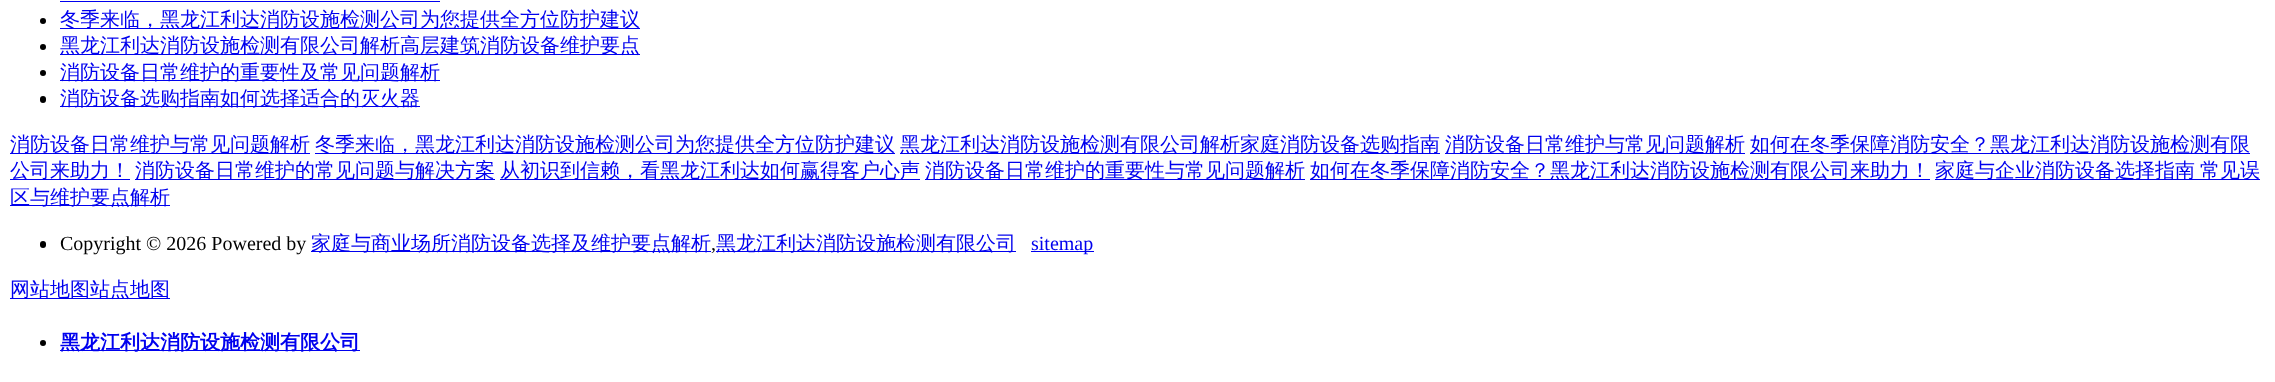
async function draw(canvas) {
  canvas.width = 2275
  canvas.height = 382
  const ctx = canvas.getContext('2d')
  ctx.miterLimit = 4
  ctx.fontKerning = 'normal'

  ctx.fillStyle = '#fff'
  ctx.fillRect(0, 0, 2275, 382)
  ctx.fillStyle = '#00e'
  ctx.fillRect(60, 1, 380, 1)
  ctx.fillStyle = '#000'
  ctx.beginPath()
  ctx.arc(43, 21, 3, 0, 2 * Math.PI)
  ctx.fill()
  ctx.fillStyle = '#00e'
  ctx.fillRect(60, 28, 580, 1)
  ctx.font = '500 20px WenQuanYi Zen Hei'
  ctx.fillText('冬季来临，黑龙江利达消防设施检测公司为您提供全方位防护建议', 60, 26)
  ctx.fillStyle = '#000'
  ctx.beginPath()
  ctx.arc(43, 47, 3, 0, 2 * Math.PI)
  ctx.fill()
  ctx.fillStyle = '#00e'
  ctx.fillRect(60, 54, 580, 1)
  ctx.fillText('黑龙江利达消防设施检测有限公司解析高层建筑消防设备维护要点', 60, 52)
  ctx.fillStyle = '#000'
  ctx.beginPath()
  ctx.arc(43, 73, 3, 0, 2 * Math.PI)
  ctx.fill()
  ctx.fillStyle = '#00e'
  ctx.fillRect(60, 80, 380, 1)
  ctx.fillText('消防设备日常维护的重要性及常见问题解析', 60, 79)
  ctx.fillStyle = '#000'
  ctx.beginPath()
  ctx.roundRect(40, 96, 6, 7, 3)
  ctx.fill()
  ctx.fillStyle = '#00e'
  ctx.fillRect(60, 106, 360, 1)
  ctx.fillText('消防设备选购指南如何选择适合的灭火器', 60, 105)
  ctx.fillRect(10, 153, 300, 1)
  ctx.fillText('消防设备日常维护与常见问题解析', 10, 151)
  ctx.fillRect(315, 153, 580, 1)
  ctx.fillText('冬季来临，黑龙江利达消防设施检测公司为您提供全方位防护建议', 315, 151)
  ctx.fillRect(900, 153, 540, 1)
  ctx.fillText('黑龙江利达消防设施检测有限公司解析家庭消防设备选购指南', 900, 151)
  ctx.fillRect(1445, 153, 300, 1)
  ctx.fillText('消防设备日常维护与常见问题解析', 1445, 151)
  ctx.fillRect(1750, 153, 500, 1)
  ctx.fillText('如何在冬季保障消防安全？黑龙江利达消防设施检测有限', 1750, 151)
  ctx.fillRect(10, 179, 120, 1)
  ctx.fillText('公司来助力！', 10, 177)
  ctx.fillRect(135, 179, 360, 1)
  ctx.fillText('消防设备日常维护的常见问题与解决方案', 135, 177)
  ctx.fillRect(500, 179, 420, 1)
  ctx.fillText('从初识到信赖，看黑龙江利达如何赢得客户心声', 500, 177)
  ctx.fillRect(925, 179, 380, 1)
  ctx.fillText('消防设备日常维护的重要性与常见问题解析', 925, 177)
  ctx.fillRect(1310, 179, 620, 1)
  ctx.fillText('如何在冬季保障消防安全？黑龙江利达消防设施检测有限公司来助力！', 1310, 177)
  ctx.fillRect(1935, 179, 325, 1)
  ctx.wordSpacing = '-1px'
  ctx.fillText('家庭与企业消防设备选择指南 常见误', 1935, 177)
  ctx.fillRect(10, 205, 160, 1)
  ctx.wordSpacing = '0px'
  ctx.fillText('区与维护要点解析', 10, 204)
  ctx.fillStyle = '#000'
  ctx.beginPath()
  ctx.roundRect(40, 241, 6, 7, 3)
  ctx.fill()
  ctx.font = '20px Liberation Serif'
  ctx.fillText('Copyright © 2026 Powered by', 60, 250)
  ctx.fillStyle = '#00e'
  ctx.fillRect(311, 251, 400, 1)
  ctx.font = '500 20px WenQuanYi Zen Hei'
  ctx.fillText('家庭与商业场所消防设备选择及维护要点解析', 311, 250)
  ctx.fillRect(716, 251, 300, 1)
  ctx.fillText('黑龙江利达消防设施检测有限公司', 716, 250)
  ctx.fillRect(1031, 251, 63, 1)
  ctx.font = '20px Liberation Serif'
  ctx.fillText('sitemap', 1031, 250)
  ctx.fillStyle = '#000'
  ctx.fillText(',', 711, 250)
  ctx.fillStyle = '#00e'
  ctx.fillRect(10, 298, 160, 1)
  ctx.font = '500 20px WenQuanYi Zen Hei'
  ctx.fillText('网站地图站点地图', 10, 296)
  ctx.fillStyle = '#000'
  ctx.beginPath()
  ctx.arc(43, 343, 3, 0, 2 * Math.PI)
  ctx.fill()
  ctx.fillStyle = '#00e'
  ctx.fillRect(60, 350, 300, 1)
  ctx.font = 'bold 20px WenQuanYi Zen Hei'
  ctx.fillText('黑龙江利达消防设施检测有限公司', 60, 349)
}

draw(document.querySelector('canvas'))
